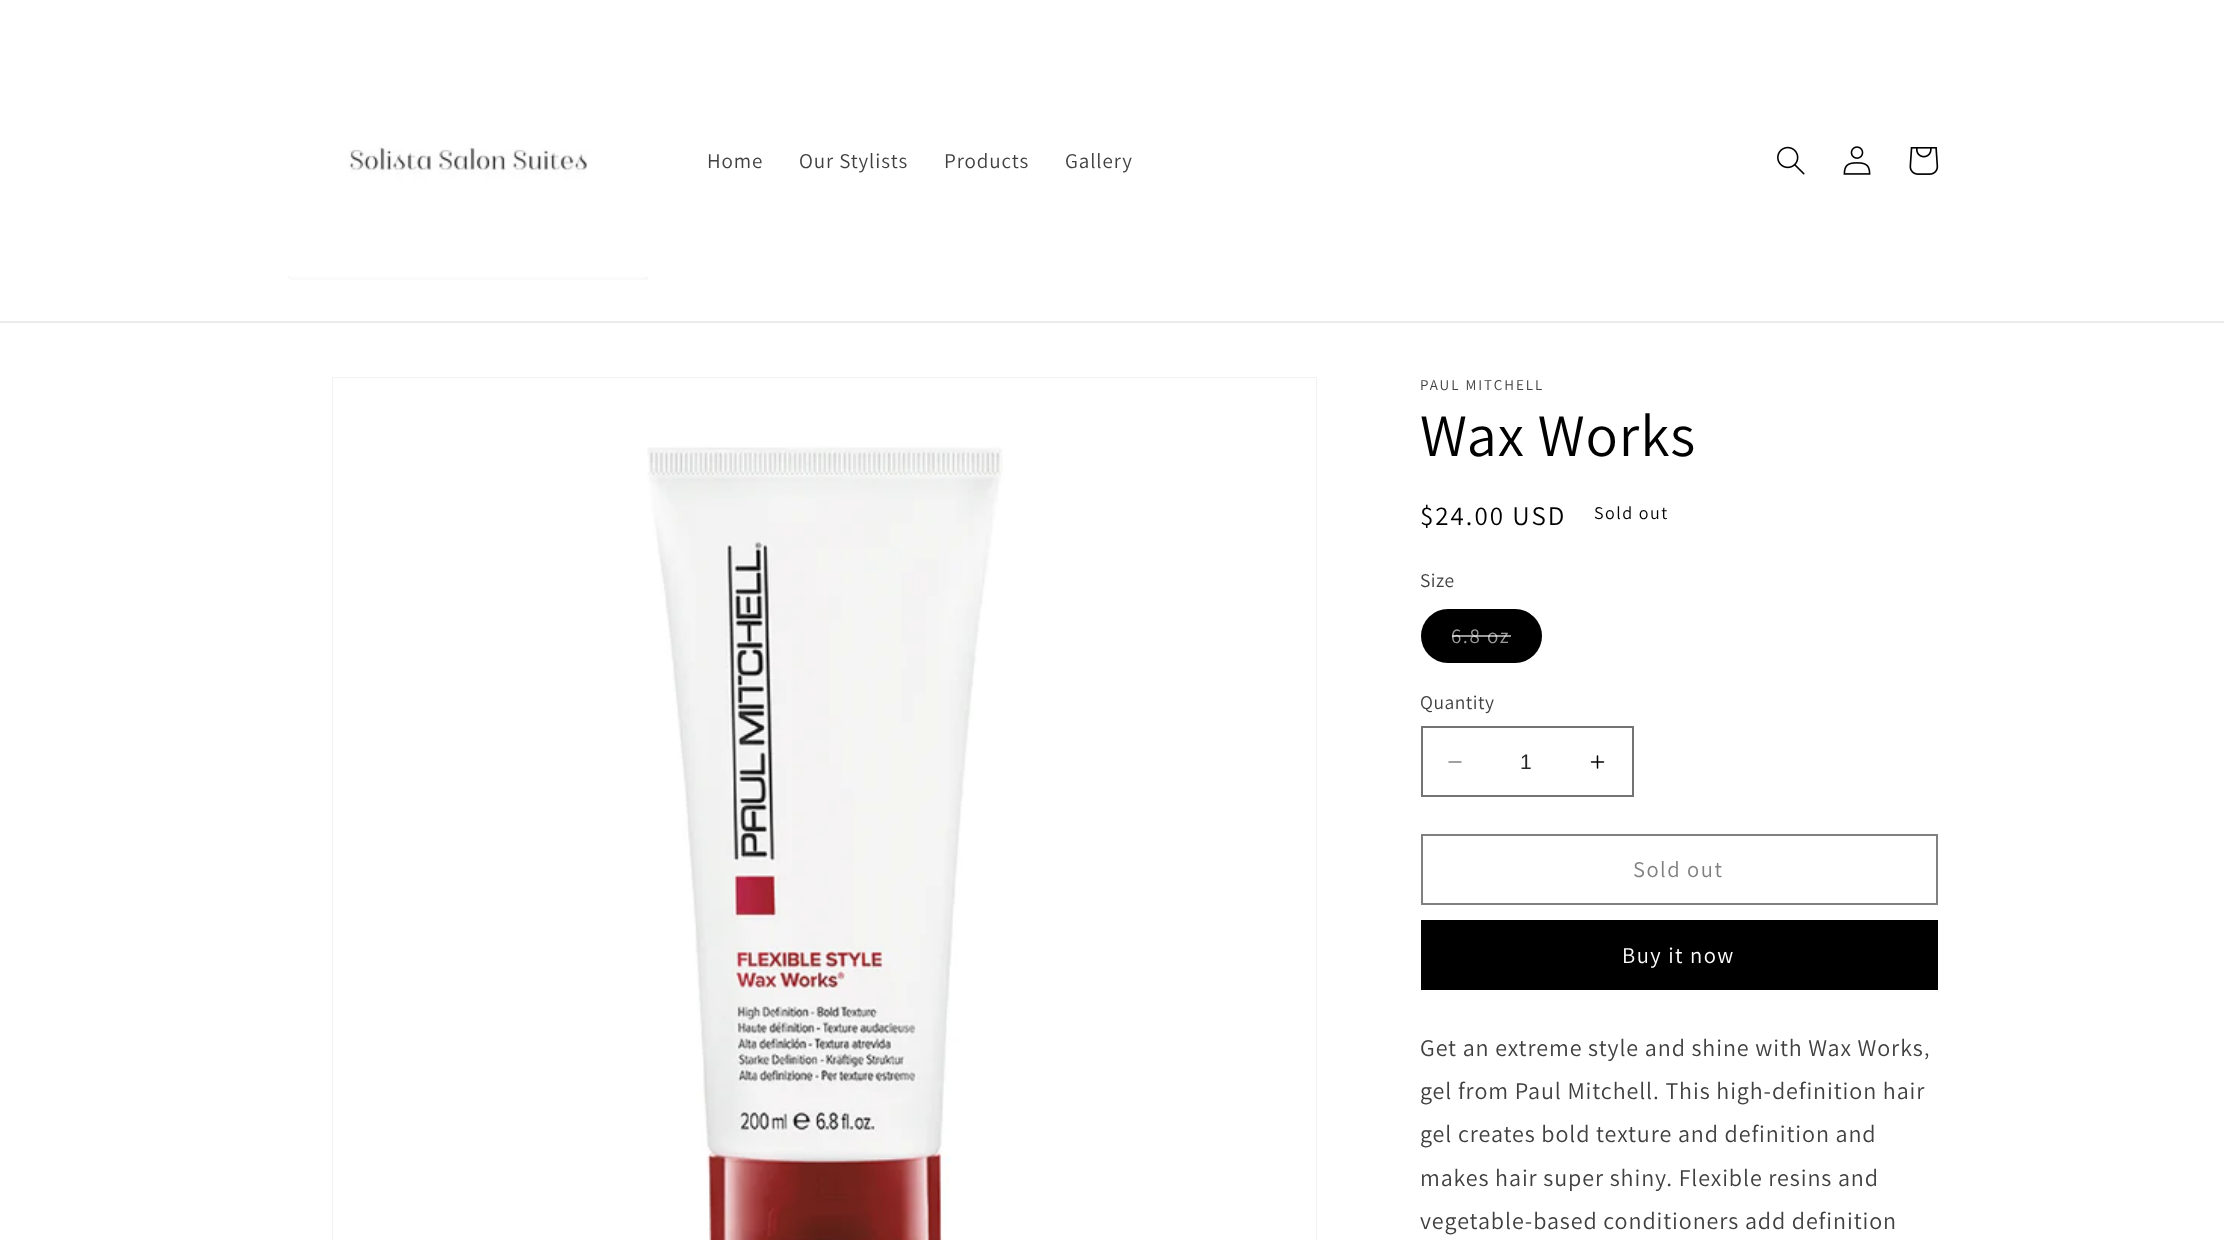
async function draw(canvas) {
  canvas.width = 2224
  canvas.height = 1240
  const ctx = canvas.getContext('2d')
  ctx.miterLimit = 4
  ctx.fontKerning = 'normal'
  async function loadImage(src) {
    const img = new Image()
    img.src = src
    await img.decode()
    return img
  }

  ctx.fillStyle = '#fff'
  ctx.fillRect(0, 0, 2224, 1240)
  ctx.fillStyle = '#ebebeb'
  ctx.fillRect(0, 321, 2224, 2)
  ctx.drawImage(await loadImage('image0.png'), 288, 144, 360, 136)
  ctx.letterSpacing = '0.9px'
  ctx.font = '21px Assistant'
  ctx.fillStyle = '#404040'
  ctx.fillText('Home', 707, 168)
  ctx.fillText('Our Stylists', 799, 168)
  ctx.fillText('Products', 944, 168)
  ctx.fillText('Gallery', 1065, 168)
  ctx.drawImage(await loadImage('image1.png'), 1777, 146, 28, 29)
  ctx.drawImage(await loadImage('image2.png'), 1843, 146, 28, 29)
  ctx.drawImage(await loadImage('image3.png'), 1909, 147, 30, 28)
  ctx.strokeStyle = '#f2f2f2'
  ctx.lineWidth = 2
  ctx.strokeRect(333, 378, 983, 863)
  ctx.drawImage(await loadImage('image4.png'), 333, 378, 983, 862)
  ctx.letterSpacing = '2px'
  ctx.font = '15px Assistant'
  ctx.fillText('PAUL MITCHELL', 1420, 390)
  ctx.letterSpacing = '0.9px'
  ctx.font = '60px Assistant'
  ctx.fillStyle = '#000'
  ctx.fillText('Wax Works', 1420, 456)
  ctx.letterSpacing = '2px'
  ctx.font = '27px Assistant'
  ctx.fillText('$24.00 USD', 1420, 525)
  ctx.letterSpacing = '1.5px'
  ctx.font = '18px Assistant'
  ctx.fillText('Sold out', 1594, 519)
  ctx.letterSpacing = '0.5px'
  ctx.font = '19.5px Assistant'
  ctx.fillStyle = '#404040'
  ctx.fillText('Size', 1420, 587)
  ctx.fillStyle = '#000'
  ctx.beginPath()
  ctx.roundRect(1421, 609, 121, 54, 27)
  ctx.fill()
  ctx.beginPath()
  ctx.roundRect(1422, 610, 119, 52, 26)
  ctx.strokeStyle = '#0000001a'
  ctx.stroke()
  ctx.letterSpacing = '1.5px'
  ctx.font = '21px Assistant'
  ctx.fillStyle = '#999'
  ctx.fillText('6.8 oz', 1451, 643)
  ctx.fillStyle = '#ffffff99'
  ctx.fillRect(1452, 635, 59, 2)
  ctx.letterSpacing = '0.5px'
  ctx.font = '19.5px Assistant'
  ctx.fillStyle = '#404040'
  ctx.fillText('Quantity', 1420, 709)
  ctx.drawImage(await loadImage('image5.png'), 1448, 761, 14, 2)
  ctx.drawImage(await loadImage('image6.png'), 1590, 755, 15, 14)
  ctx.strokeStyle = '#737373'
  ctx.strokeRect(1422, 727, 211, 69)
  ctx.letterSpacing = '0px'
  ctx.font = '21px Liberation Sans'
  ctx.fillStyle = '#262626'
  ctx.fillText('1', 1520, 769)
  ctx.strokeStyle = '#808080'
  ctx.strokeRect(1422, 835, 515, 69)
  ctx.letterSpacing = '1.5px'
  ctx.font = '22.5px Assistant'
  ctx.fillStyle = '#808080'
  ctx.fillText('Sold out', 1633, 877)
  ctx.fillStyle = '#000'
  ctx.fillRect(1421, 920, 517, 70)
  ctx.fillStyle = '#fff'
  ctx.fillText('Buy it now', 1622, 963)
  ctx.letterSpacing = '0.9px'
  ctx.font = '24px Assistant'
  ctx.fillStyle = '#404040'
  ctx.fillText('Get an extreme style and shine with Wax Works‚', 1420, 1056)
  ctx.fillText('gel from Paul Mitchell. This high-definition hair', 1420, 1099)
  ctx.fillText('gel creates bold texture and definition and', 1420, 1142)
  ctx.fillText('makes hair super shiny. Flexible resins and', 1420, 1186)
  ctx.fillText('vegetable-based conditioners add definition', 1420, 1229)
}

draw(document.querySelector('canvas'))
